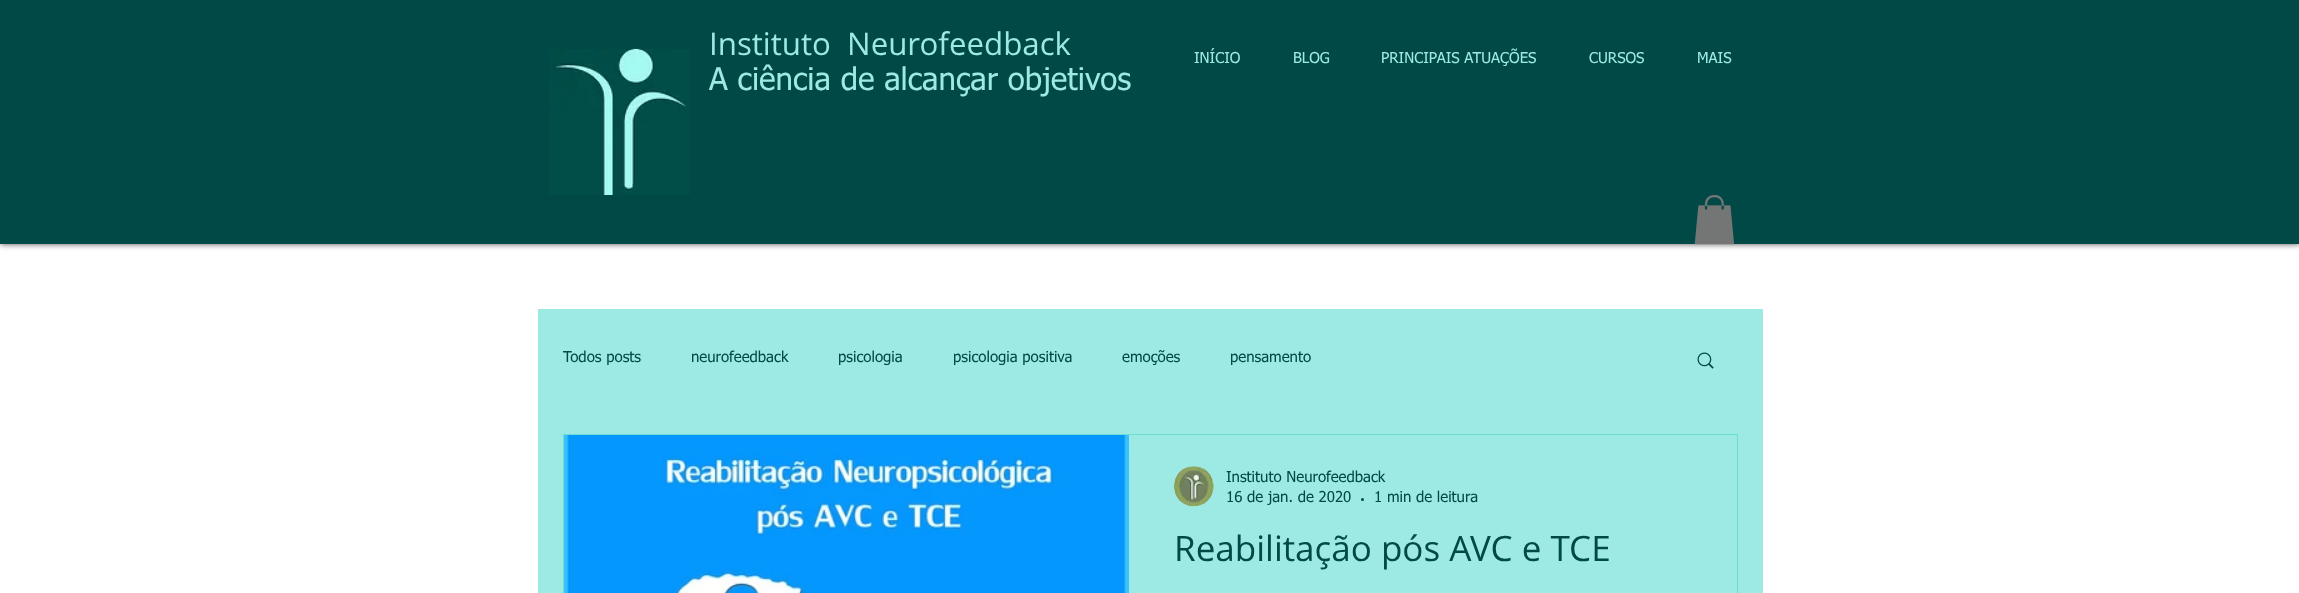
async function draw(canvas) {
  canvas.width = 2299
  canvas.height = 593
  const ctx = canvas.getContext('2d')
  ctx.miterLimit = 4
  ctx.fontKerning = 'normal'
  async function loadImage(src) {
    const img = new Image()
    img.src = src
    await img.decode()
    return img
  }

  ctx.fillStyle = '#fff'
  ctx.fillRect(0, 0, 2299, 593)
  ctx.fillStyle = '#000000b3'
  ctx.filter = 'blur(3px)'
  ctx.beginPath()
  ctx.rect(0, 0, 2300, 244)
  ctx.fill()
  ctx.filter = 'none'
  ctx.fillStyle = '#004946'
  ctx.fillRect(0, 0, 2299, 244)
  ctx.drawImage(await loadImage('image0.png'), 549, 48, 141, 147)
  ctx.font = '31.25px Open Sans'
  ctx.fillStyle = '#9deae4'
  ctx.fillText('Instituto  Neurofeedback', 709, 55)
  ctx.font = '31.25px tahoma'
  ctx.fillText('A ciência de alcançar objetivos', 709, 90)
  ctx.font = '15px tahoma'
  ctx.fillText('INÍCIO', 1194, 63)
  ctx.fillText('BLOG', 1293, 63)
  ctx.fillText('PRINCIPAIS ATUAÇÕES', 1381, 63)
  ctx.fillText('CURSOS', 1589, 63)
  ctx.fillText('MAIS', 1697, 63)
  ctx.drawImage(await loadImage('image1.png'), 1694, 195, 40, 50)
  ctx.fillRect(538, 309, 1225, 284)
  ctx.fillStyle = '#004946'
  ctx.fillText('Todos posts', 563, 362)
  ctx.fillText('neurofeedback', 691, 362)
  ctx.fillText('psicologia', 838, 362)
  ctx.fillText('psicologia positiva', 953, 362)
  ctx.fillText('emoções', 1122, 362)
  ctx.fillText('pensamento', 1230, 362)
  ctx.drawImage(await loadImage('image2.png'), 1697, 352, 17, 17)
  ctx.strokeStyle = '#6eddd3'
  ctx.strokeRect(563.5, 434.5, 1174, 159)
  ctx.drawImage(await loadImage('image3.png'), 564, 435, 565, 158)
  ctx.drawImage(await loadImage('image4.png'), 1173, 466, 41, 41)
  ctx.fillText('Instituto Neurofeedback', 1226, 482)
  ctx.fillText('16 de jan. de 2020', 1226, 502)
  ctx.beginPath()
  ctx.arc(1362.5, 499.5, 1.5, 0, 2 * Math.PI)
  ctx.fill()
  ctx.fillText('1 min de leitura', 1374, 502)
  ctx.font = '35px Open Sans'
  ctx.fillText('Reabilitação pós AVC e TCE', 1174, 561)
}

draw(document.querySelector('canvas'))
